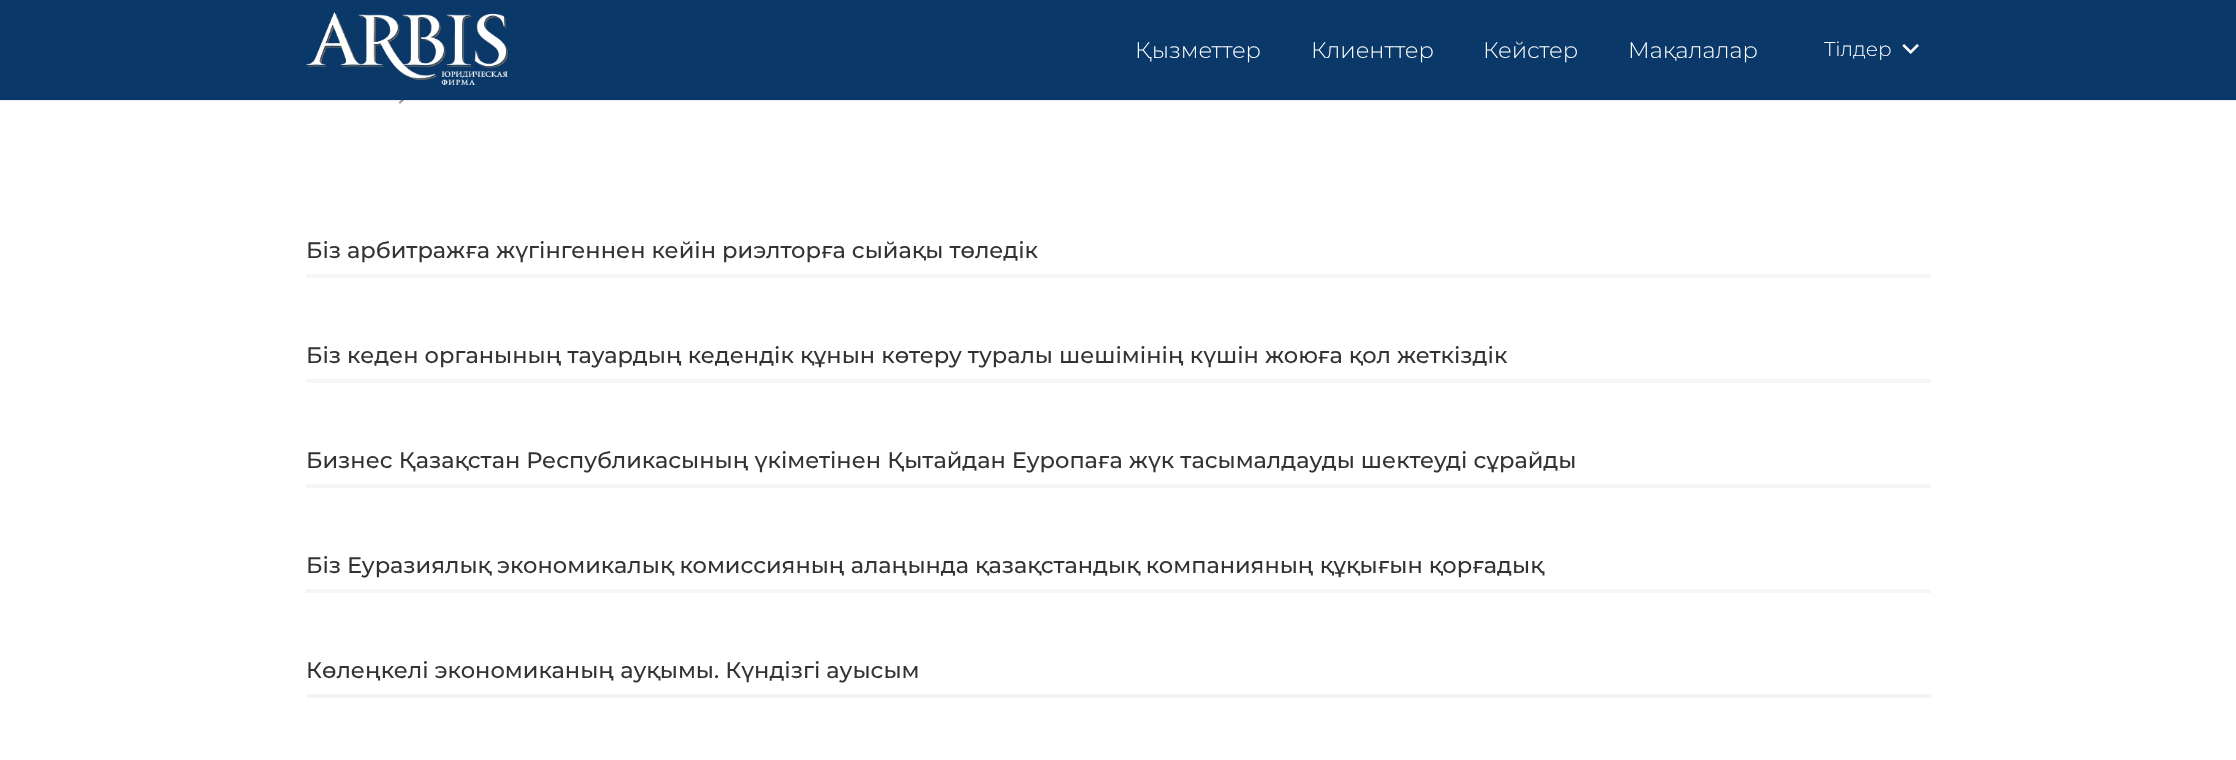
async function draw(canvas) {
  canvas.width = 2236
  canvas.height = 760
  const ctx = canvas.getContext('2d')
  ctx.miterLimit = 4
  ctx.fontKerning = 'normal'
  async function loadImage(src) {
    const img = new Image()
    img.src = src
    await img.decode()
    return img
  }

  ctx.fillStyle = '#fff'
  ctx.fillRect(0, 0, 2236, 760)
  ctx.drawImage(await loadImage('image2.png'), 398, 100, 6, 4)
  ctx.fillStyle = '#00000014'
  ctx.fillRect(0, 100, 2236, 1)
  ctx.fillStyle = '#0a3969'
  ctx.fillRect(0, 0, 2236, 100)
  ctx.drawImage(await loadImage('image0.png'), 306, 12, 202, 73)
  ctx.font = '300 22.5px Montserrat'
  ctx.fillStyle = '#fff'
  ctx.fillText('Қызметтер', 1135, 58)
  ctx.fillText('Клиенттер', 1311, 58)
  ctx.fillText('Кейстер', 1483, 58)
  ctx.fillText('Мақалалар', 1628, 58)
  ctx.font = '300 20px Montserrat'
  ctx.fillText('Тілдер', 1824, 56)
  ctx.drawImage(await loadImage('image1.png'), 1902, 44, 17, 10)
  ctx.fillStyle = '#f5f5f5'
  ctx.fillRect(306, 274, 1625, 4)
  ctx.font = '500 22.5px Montserrat'
  ctx.fillStyle = '#333'
  ctx.fillText('Біз арбитражға жүгінгеннен кейін риэлторға сыйақы төледік', 306, 258)
  ctx.fillStyle = '#f5f5f5'
  ctx.fillRect(306, 379, 1625, 4)
  ctx.fillStyle = '#333'
  ctx.fillText('Біз кеден органының тауардың кедендік құнын көтеру туралы шешімінің күшін жоюға қол жеткіздік', 306, 363)
  ctx.fillStyle = '#f5f5f5'
  ctx.fillRect(306, 484, 1625, 4)
  ctx.fillStyle = '#333'
  ctx.fillText('Бизнес Қазақстан Республикасының үкіметінен Қытайдан Еуропаға жүк тасымалдауды шектеуді сұрайды', 306, 468)
  ctx.fillStyle = '#f5f5f5'
  ctx.fillRect(306, 589, 1625, 4)
  ctx.fillStyle = '#333'
  ctx.fillText('Біз Еуразиялық экономикалық комиссияның алаңында қазақстандық компанияның құқығын қорғадық', 306, 573)
  ctx.fillStyle = '#f5f5f5'
  ctx.fillRect(306, 694, 1625, 4)
  ctx.fillStyle = '#333'
  ctx.fillText('Көлеңкелі экономиканың ауқымы. Күндізгі ауысым', 306, 678)
}

draw(document.querySelector('canvas'))
